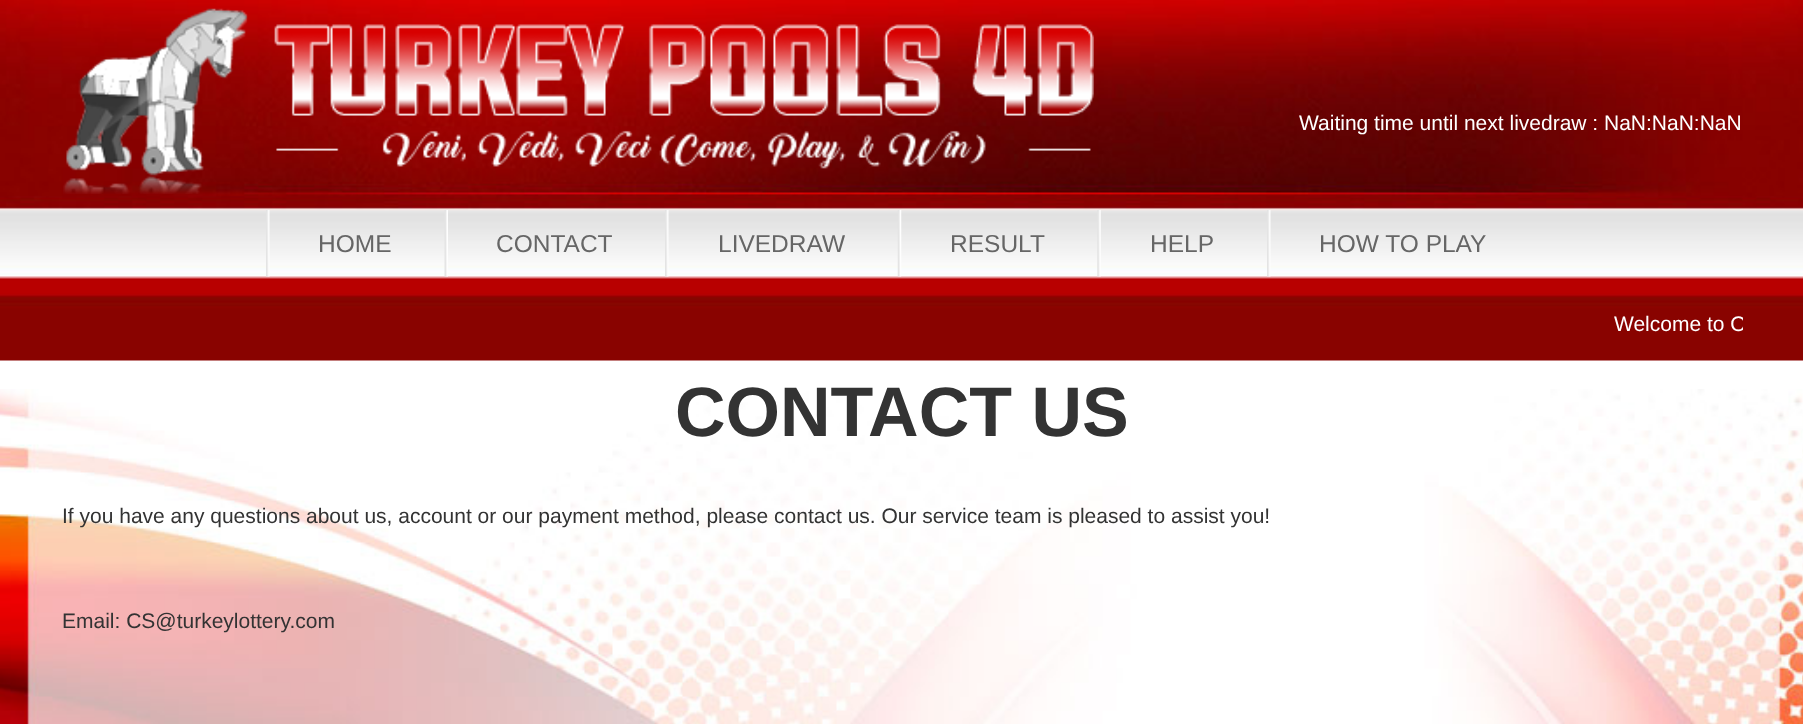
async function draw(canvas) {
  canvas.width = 1803
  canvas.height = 724
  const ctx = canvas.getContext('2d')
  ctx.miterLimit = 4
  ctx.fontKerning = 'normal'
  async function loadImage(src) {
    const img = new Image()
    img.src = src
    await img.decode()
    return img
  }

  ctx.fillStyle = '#fff'
  ctx.fillRect(0, 0, 1803, 724)
  ctx.drawImage(await loadImage('image0.png'), 0, 389, 1803, 335)
  ctx.drawImage(await loadImage('image1.png'), 0, 0, 1803, 361)
  ctx.drawImage(await loadImage('image2.png'), 63, 8, 1031, 186)
  ctx.font = '21px Liberation Sans'
  ctx.fillText('Waiting time until next livedraw : NaN:NaN:NaN', 1299, 130)
  ctx.drawImage(await loadImage('image3.png'), 266, 210, 4, 67)
  ctx.font = '24.5px Liberation Sans'
  ctx.fillStyle = '#666'
  ctx.fillText('HOME', 318, 252)
  ctx.drawImage(await loadImage('image4.png'), 444, 210, 4, 67)
  ctx.fillText('CONTACT', 496, 252)
  ctx.drawImage(await loadImage('image3.png'), 665, 210, 4, 67)
  ctx.fillText('LIVEDRAW', 718, 252)
  ctx.drawImage(await loadImage('image5.png'), 897, 210, 5, 67)
  ctx.fillText('RESULT', 950, 252)
  ctx.drawImage(await loadImage('image6.png'), 1097, 210, 4, 67)
  ctx.fillText('HELP', 1150, 252)
  ctx.drawImage(await loadImage('image3.png'), 1267, 210, 4, 67)
  ctx.fillText('HOW TO PLAY', 1319, 252)
  ctx.save()
  ctx.beginPath()
  ctx.rect(63, 308, 1680, 32)
  ctx.clip()
  ctx.font = '21px Liberation Sans'
  ctx.fillStyle = '#fff'
  ctx.fillText('Welcome to O', 1614, 331)
  ctx.restore()
  ctx.font = 'bold 70px Liberation Sans'
  ctx.fillStyle = '#333'
  ctx.fillText('CONTACT US', 675, 436)
  ctx.font = '21px Liberation Sans'
  ctx.fillText('If you have any questions about us, account or our payment method, please contact us. Our service team is pleased to assist you!', 62, 523)
  ctx.fillText('Email: CS@turkeylottery.com', 62, 628)
}

draw(document.querySelector('canvas'))
